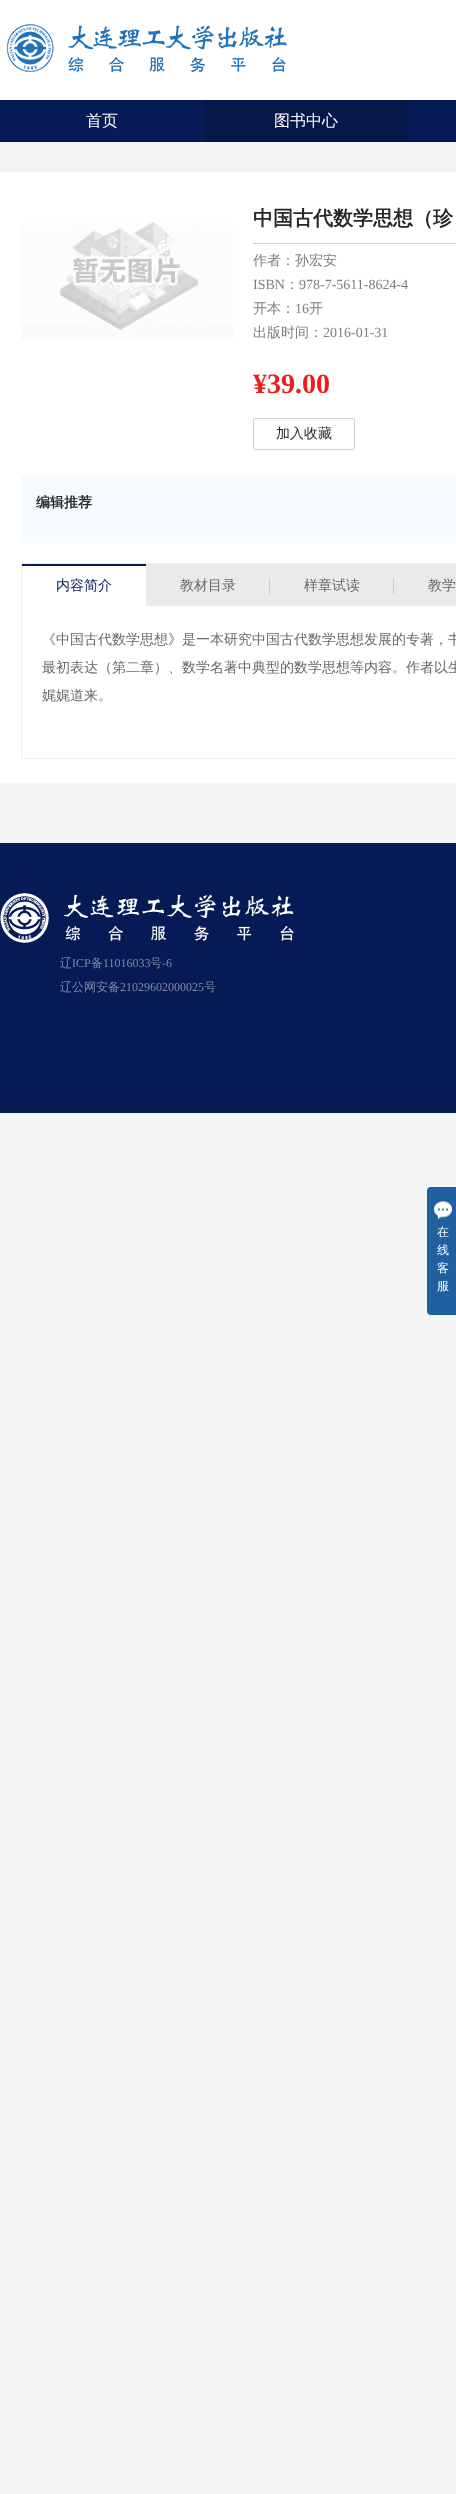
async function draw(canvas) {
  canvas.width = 456
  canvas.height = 2494
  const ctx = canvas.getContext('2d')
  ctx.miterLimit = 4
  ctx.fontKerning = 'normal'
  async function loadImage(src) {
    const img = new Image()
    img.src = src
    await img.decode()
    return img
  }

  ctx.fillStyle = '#f5f5f5'
  ctx.fillRect(0, 0, 456, 2494)
  ctx.fillStyle = '#fff'
  ctx.fillRect(0, 0, 456, 100)
  ctx.drawImage(await loadImage('image0.png'), 7, 24, 280, 48)
  ctx.fillStyle = '#061b55'
  ctx.fillRect(0, 100, 456, 42)
  ctx.font = '500 16px WenQuanYi Zen Hei'
  ctx.fillStyle = '#fff'
  ctx.fillText('首页', 86, 126)
  ctx.fillStyle = '#051748'
  ctx.fillRect(204, 100, 204, 42)
  ctx.fillStyle = '#fff'
  ctx.fillText('图书中心', 274, 126)
  ctx.beginPath()
  ctx.roundRect(0, 172, 456, 611, [2, 0, 0, 2])
  ctx.fill()
  ctx.drawImage(await loadImage('image1.png'), 21, 222, 212, 118)
  ctx.fillStyle = '#ccc'
  ctx.fillRect(253, 243, 203, 1)
  ctx.font = 'bold 20px WenQuanYi Zen Hei'
  ctx.fillStyle = '#282828'
  ctx.fillText('中国古代数学思想（珍', 253, 225)
  ctx.font = '500 14px WenQuanYi Zen Hei'
  ctx.fillStyle = '#7e7e7e'
  ctx.fillText('作者：孙宏安', 253, 265)
  ctx.font = '14px Liberation Serif'
  ctx.fillText('ISBN', 253, 289)
  ctx.font = '500 14px WenQuanYi Zen Hei'
  ctx.fillText('：', 285, 289)
  ctx.font = '14px Liberation Serif'
  ctx.fillText('978-7-5611-8624-4', 299, 289)
  ctx.font = '500 14px WenQuanYi Zen Hei'
  ctx.fillText('开本：', 253, 313)
  ctx.font = '14px Liberation Serif'
  ctx.fillText('16', 295, 313)
  ctx.font = '500 14px WenQuanYi Zen Hei'
  ctx.fillText('开', 309, 313)
  ctx.fillText('出版时间：', 253, 337)
  ctx.font = '14px Liberation Serif'
  ctx.fillText('2016-01-31', 323, 337)
  ctx.font = 'bold 28px Liberation Serif'
  ctx.fillStyle = '#f01c18'
  ctx.fillText('¥39.00', 253, 393)
  ctx.beginPath()
  ctx.roundRect(253.5, 418.5, 101, 31, 1.5)
  ctx.strokeStyle = '#ccc'
  ctx.stroke()
  ctx.font = '500 14px WenQuanYi Zen Hei'
  ctx.fillStyle = '#282828'
  ctx.fillText('加入收藏', 276, 438)
  ctx.fillStyle = '#f6fbff'
  ctx.fillRect(21, 475, 435, 68)
  ctx.font = 'bold 14px WenQuanYi Zen Hei'
  ctx.fillStyle = '#282828'
  ctx.fillText('编辑推荐', 36, 507)
  ctx.strokeStyle = '#eee'
  ctx.strokeRect(21.5, 563.5, 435, 195)
  ctx.fillStyle = '#ebeaea'
  ctx.fillRect(146, 564, 310, 42)
  ctx.fillStyle = '#061b55'
  ctx.fillRect(22, 564, 124, 2)
  ctx.font = '500 14px WenQuanYi Zen Hei'
  ctx.fillText('内容简介', 56, 590)
  ctx.fillStyle = '#686868'
  ctx.fillText('教材目录', 180, 590)
  ctx.fillStyle = '#ccc'
  ctx.fillRect(269, 578, 1, 16)
  ctx.fillStyle = '#686868'
  ctx.fillText('样章试读', 304, 590)
  ctx.fillStyle = '#ccc'
  ctx.fillRect(393, 578, 1, 16)
  ctx.fillStyle = '#686868'
  ctx.fillText('教学', 428, 590)
  ctx.fillText('《中国古代数学思想》是一本研究中国古代数学思想发展的专著，书', 42, 644)
  ctx.fillText('最初表达（第二章）、数学名著中典型的数学思想等内容。作者以生', 42, 672)
  ctx.fillText('娓娓道来。', 42, 700)
  ctx.fillStyle = '#061b55'
  ctx.fillRect(0, 843, 456, 270)
  ctx.drawImage(await loadImage('image2.png'), 0, 893, 294, 50)
  ctx.font = '500 12px WenQuanYi Zen Hei'
  ctx.fillStyle = '#808ba8'
  ctx.fillText('辽', 60, 967)
  ctx.font = '12px Liberation Serif'
  ctx.fillText('ICP', 72, 967)
  ctx.font = '500 12px WenQuanYi Zen Hei'
  ctx.fillText('备', 91, 967)
  ctx.font = '12px Liberation Serif'
  ctx.fillText('11016033', 103, 967)
  ctx.font = '500 12px WenQuanYi Zen Hei'
  ctx.fillText('号', 150, 967)
  ctx.font = '12px Liberation Serif'
  ctx.fillText('-6', 162, 967)
  ctx.font = '500 12px WenQuanYi Zen Hei'
  ctx.fillText('辽公网安备', 60, 991)
  ctx.font = '12px Liberation Serif'
  ctx.fillText('21029602000025', 120, 991)
  ctx.font = '500 12px WenQuanYi Zen Hei'
  ctx.fillText('号', 204, 991)
  ctx.fillStyle = '#20609f'
  ctx.beginPath()
  ctx.roundRect(427, 1187, 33, 128, 4)
  ctx.fill()
  ctx.drawImage(await loadImage('image3.png'), 434, 1201, 18, 18)
  ctx.fillStyle = '#fff'
  ctx.fillText('在', 437, 1236)
  ctx.fillText('线', 437, 1254)
  ctx.fillText('客', 437, 1272)
  ctx.fillText('服', 437, 1290)
}

draw(document.querySelector('canvas'))
